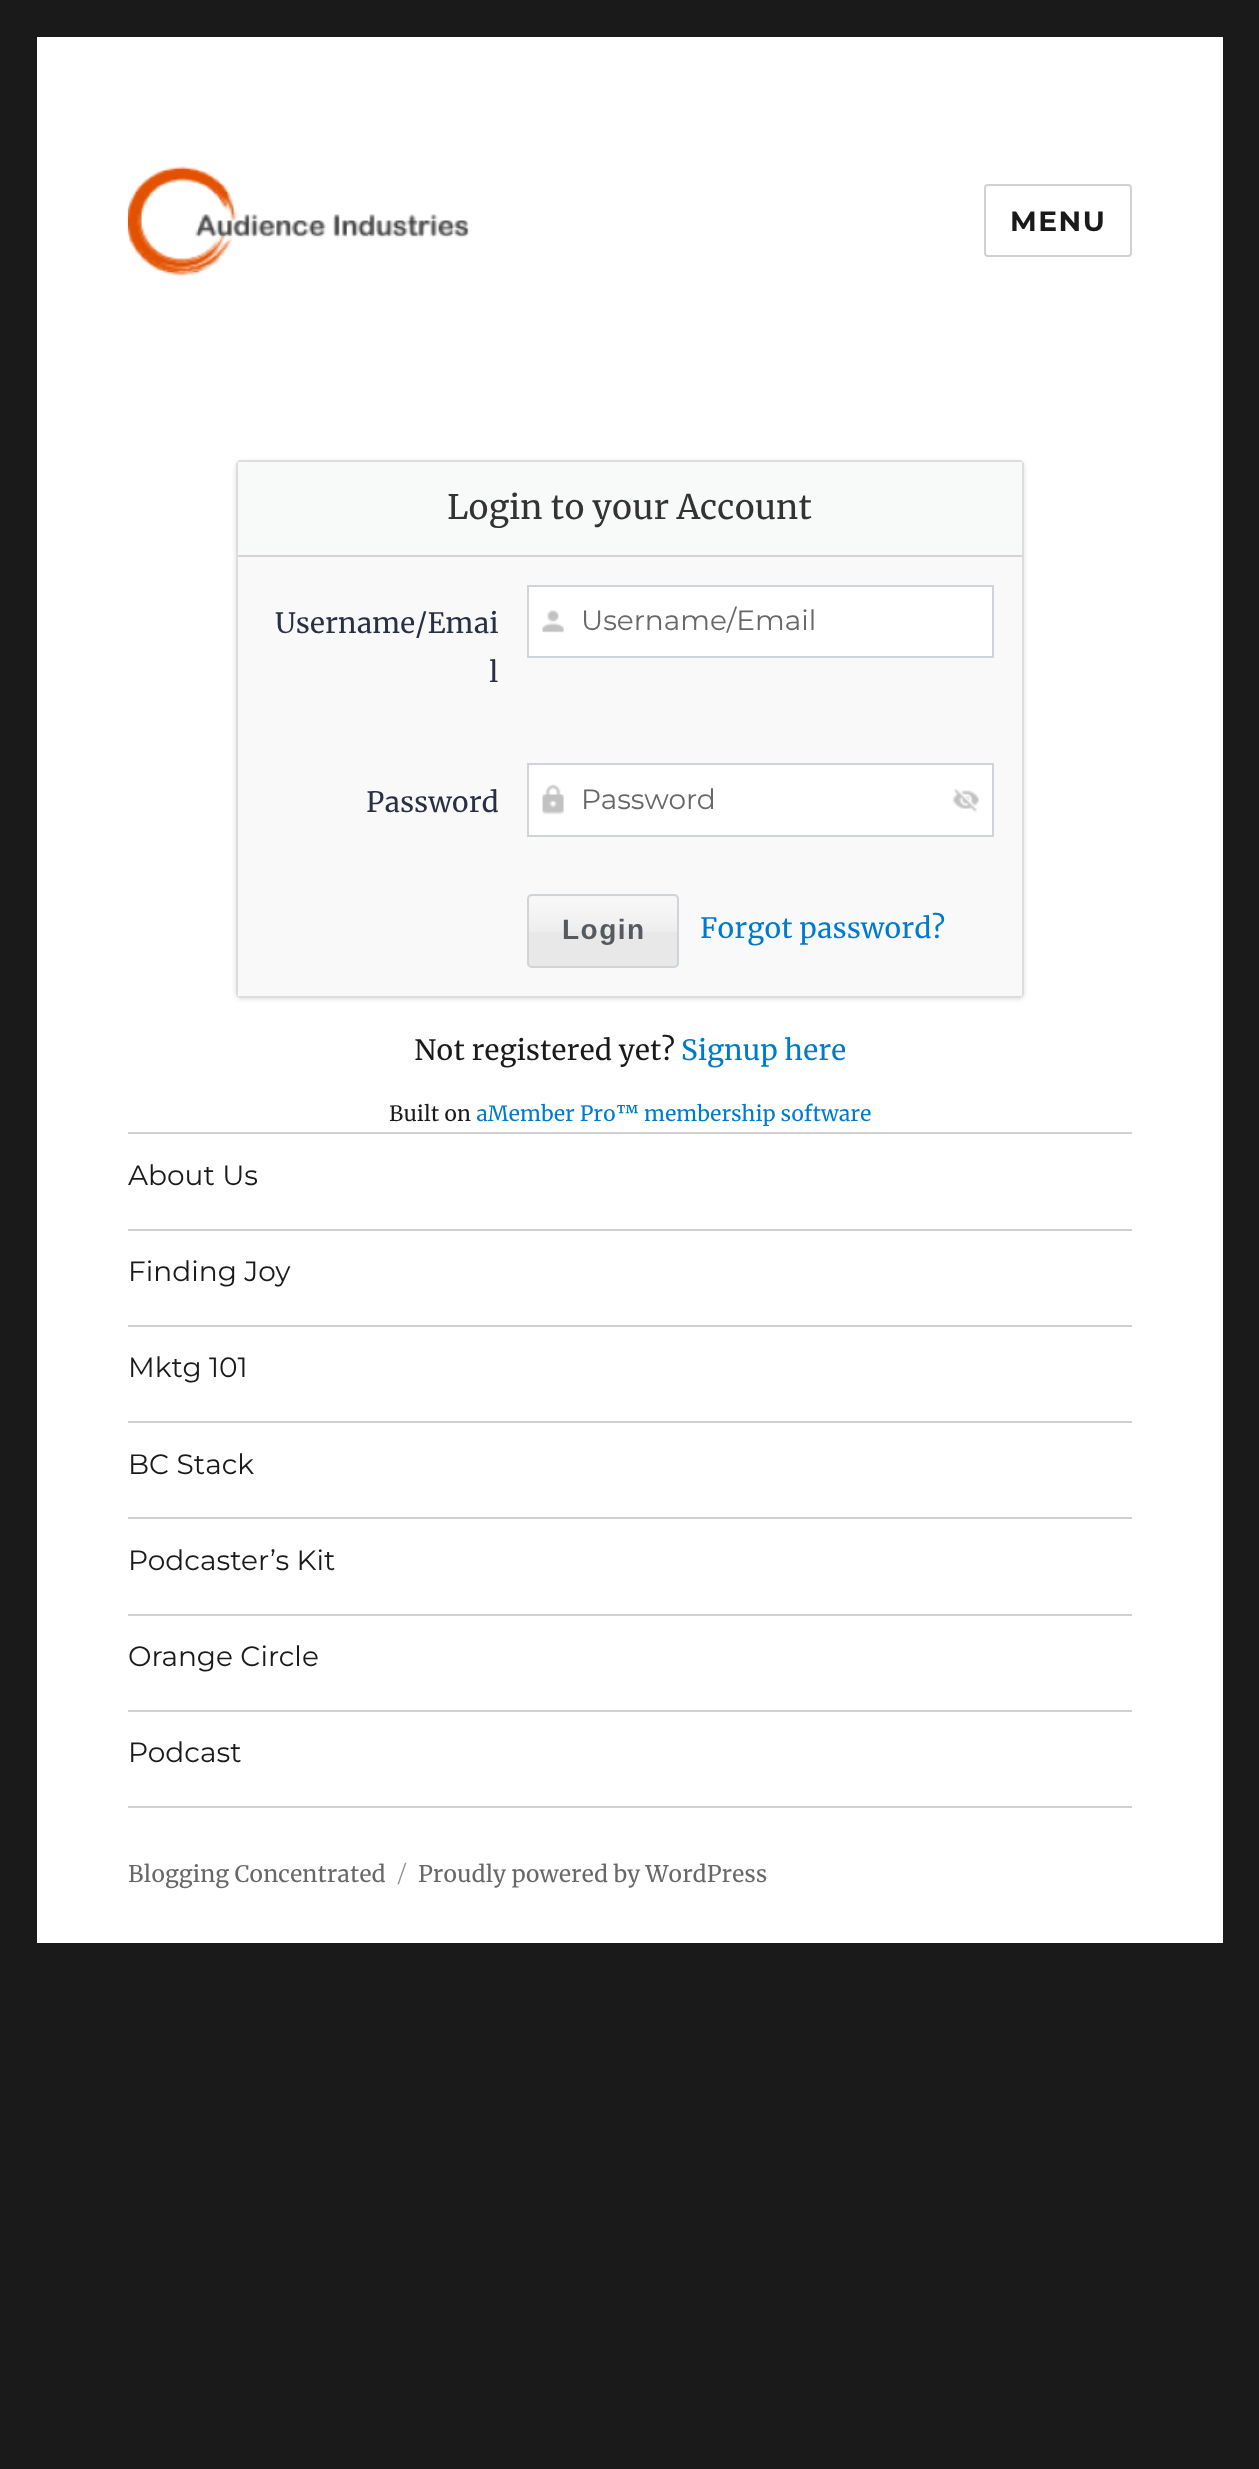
async function draw(canvas) {
  canvas.width = 1259
  canvas.height = 2469
  const ctx = canvas.getContext('2d')
  ctx.miterLimit = 4
  ctx.fontKerning = 'normal'
  async function loadImage(src) {
    const img = new Image()
    img.src = src
    await img.decode()
    return img
  }

  ctx.fillStyle = '#1a1a1a'
  ctx.fillRect(0, 0, 1259, 2469)
  ctx.fillStyle = '#fff'
  ctx.fillRect(37, 37, 1186, 1906)
  ctx.drawImage(await loadImage('image0.png'), 127, 165, 343, 111)
  ctx.beginPath()
  ctx.roundRect(985, 185, 146, 71, 3)
  ctx.strokeStyle = '#d1d1d1'
  ctx.lineWidth = 2
  ctx.stroke()
  ctx.letterSpacing = '1.5px'
  ctx.font = '100 28px Montserrat'
  ctx.fillStyle = '#1a1a1a'
  ctx.fillText('MENU', 1010, 231)
  ctx.fillStyle = '#ddd'
  ctx.filter = 'blur(2.5px)'
  ctx.beginPath()
  ctx.roundRect(236, 462, 788, 537, 5)
  ctx.fill()
  ctx.filter = 'none'
  ctx.beginPath()
  ctx.roundRect(237, 461, 786, 536, 4)
  ctx.strokeStyle = '#ddd'
  ctx.stroke()
  ctx.fillStyle = '#f8f9f9'
  ctx.fillRect(238, 462, 784, 93)
  ctx.fillStyle = '#d5d5d5'
  ctx.fillRect(238, 555, 784, 2)
  ctx.letterSpacing = '0px'
  ctx.font = '33.6px Merriweather'
  ctx.fillStyle = '#333'
  ctx.fillText('Login to your Account', 447, 519)
  ctx.fillStyle = '#f9f9f9'
  ctx.fillRect(238, 557, 784, 439)
  ctx.font = '28px Merriweather'
  ctx.fillStyle = '#273044'
  ctx.fillText('Username/Emai', 275, 633)
  ctx.fillText('l', 489, 682)
  ctx.fillStyle = '#fff'
  ctx.fillRect(529, 587, 463, 69)
  ctx.drawImage(await loadImage('image1.png'), 542, 610, 22, 23)
  ctx.strokeStyle = '#ced4da'
  ctx.strokeRect(528, 586, 465, 71)
  ctx.font = '100 28px "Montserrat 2"'
  ctx.fillStyle = '#686868'
  ctx.fillText('Username/Email', 581, 630)
  ctx.font = '28px Merriweather'
  ctx.fillStyle = '#273044'
  ctx.fillText('Password', 366, 812)
  ctx.fillStyle = '#fff'
  ctx.fillRect(529, 765, 463, 70)
  ctx.drawImage(await loadImage('image2.png'), 542, 784, 22, 31)
  ctx.strokeRect(528, 764, 465, 72)
  ctx.font = '100 28px "Montserrat 2"'
  ctx.fillStyle = '#686868'
  ctx.fillText('Password', 581, 809)
  ctx.drawImage(await loadImage('image3.png'), 952, 789, 28, 24)
  ctx.fillStyle = '#e8e8e8'
  ctx.beginPath()
  ctx.roundRect(527, 894, 152, 74, 5)
  ctx.fill()
  ctx.drawImage(await loadImage('image4.png'), 527, 896, 152, 36)
  ctx.beginPath()
  ctx.roundRect(528, 895, 150, 72, 4)
  ctx.stroke()
  ctx.letterSpacing = '1.5px'
  ctx.font = 'bold 28px Liberation Sans'
  ctx.fillStyle = '#555960'
  ctx.fillText('Login', 562, 939)
  ctx.letterSpacing = '0px'
  ctx.font = '28px Merriweather'
  ctx.fillStyle = '#007acc'
  ctx.fillText('Forgot password?', 700, 938)
  ctx.fillStyle = '#1a1a1a'
  ctx.fillText('Not registered yet?', 414, 1060)
  ctx.fillStyle = '#007acc'
  ctx.fillText('Signup here', 681, 1060)
  ctx.font = '21px Merriweather'
  ctx.fillStyle = '#1a1a1a'
  ctx.fillText('Built on', 389, 1121)
  ctx.fillStyle = '#007acc'
  ctx.fillText('aMember Pro™ membership software', 476, 1121)
  ctx.fillStyle = '#d1d1d1'
  ctx.fillRect(128, 1806, 1004, 2)
  ctx.fillRect(128, 1132, 1004, 2)
  ctx.font = '100 28px "Montserrat 2"'
  ctx.fillStyle = '#1a1a1a'
  ctx.fillText('About Us', 128, 1185)
  ctx.fillStyle = '#d1d1d1'
  ctx.fillRect(128, 1229, 1004, 2)
  ctx.fillStyle = '#1a1a1a'
  ctx.fillText('Finding Joy', 128, 1281)
  ctx.fillStyle = '#d1d1d1'
  ctx.fillRect(128, 1325, 1004, 2)
  ctx.fillStyle = '#1a1a1a'
  ctx.fillText('Mktg 101', 128, 1377)
  ctx.fillStyle = '#d1d1d1'
  ctx.fillRect(128, 1421, 1004, 2)
  ctx.fillStyle = '#1a1a1a'
  ctx.fillText('BC Stack', 128, 1474)
  ctx.fillStyle = '#d1d1d1'
  ctx.fillRect(128, 1517, 1004, 2)
  ctx.fillStyle = '#1a1a1a'
  ctx.fillText('Podcaster’s Kit', 128, 1570)
  ctx.fillStyle = '#d1d1d1'
  ctx.fillRect(128, 1614, 1004, 2)
  ctx.fillStyle = '#1a1a1a'
  ctx.fillText('Orange Circle', 128, 1666)
  ctx.fillStyle = '#d1d1d1'
  ctx.fillRect(128, 1710, 1004, 2)
  ctx.fillStyle = '#1a1a1a'
  ctx.fillText('Podcast', 128, 1762)
  ctx.font = '22.75px Merriweather'
  ctx.fillStyle = '#686868'
  ctx.fillText('Blogging Concentrated', 128, 1882)
  ctx.font = '100 22.75px "Montserrat 2"'
  ctx.fillStyle = '#959595'
  ctx.fillText('/', 398, 1882)
  ctx.font = '22.75px Merriweather'
  ctx.fillStyle = '#686868'
  ctx.fillText('Proudly powered by WordPress', 418, 1882)
}

draw(document.querySelector('canvas'))
